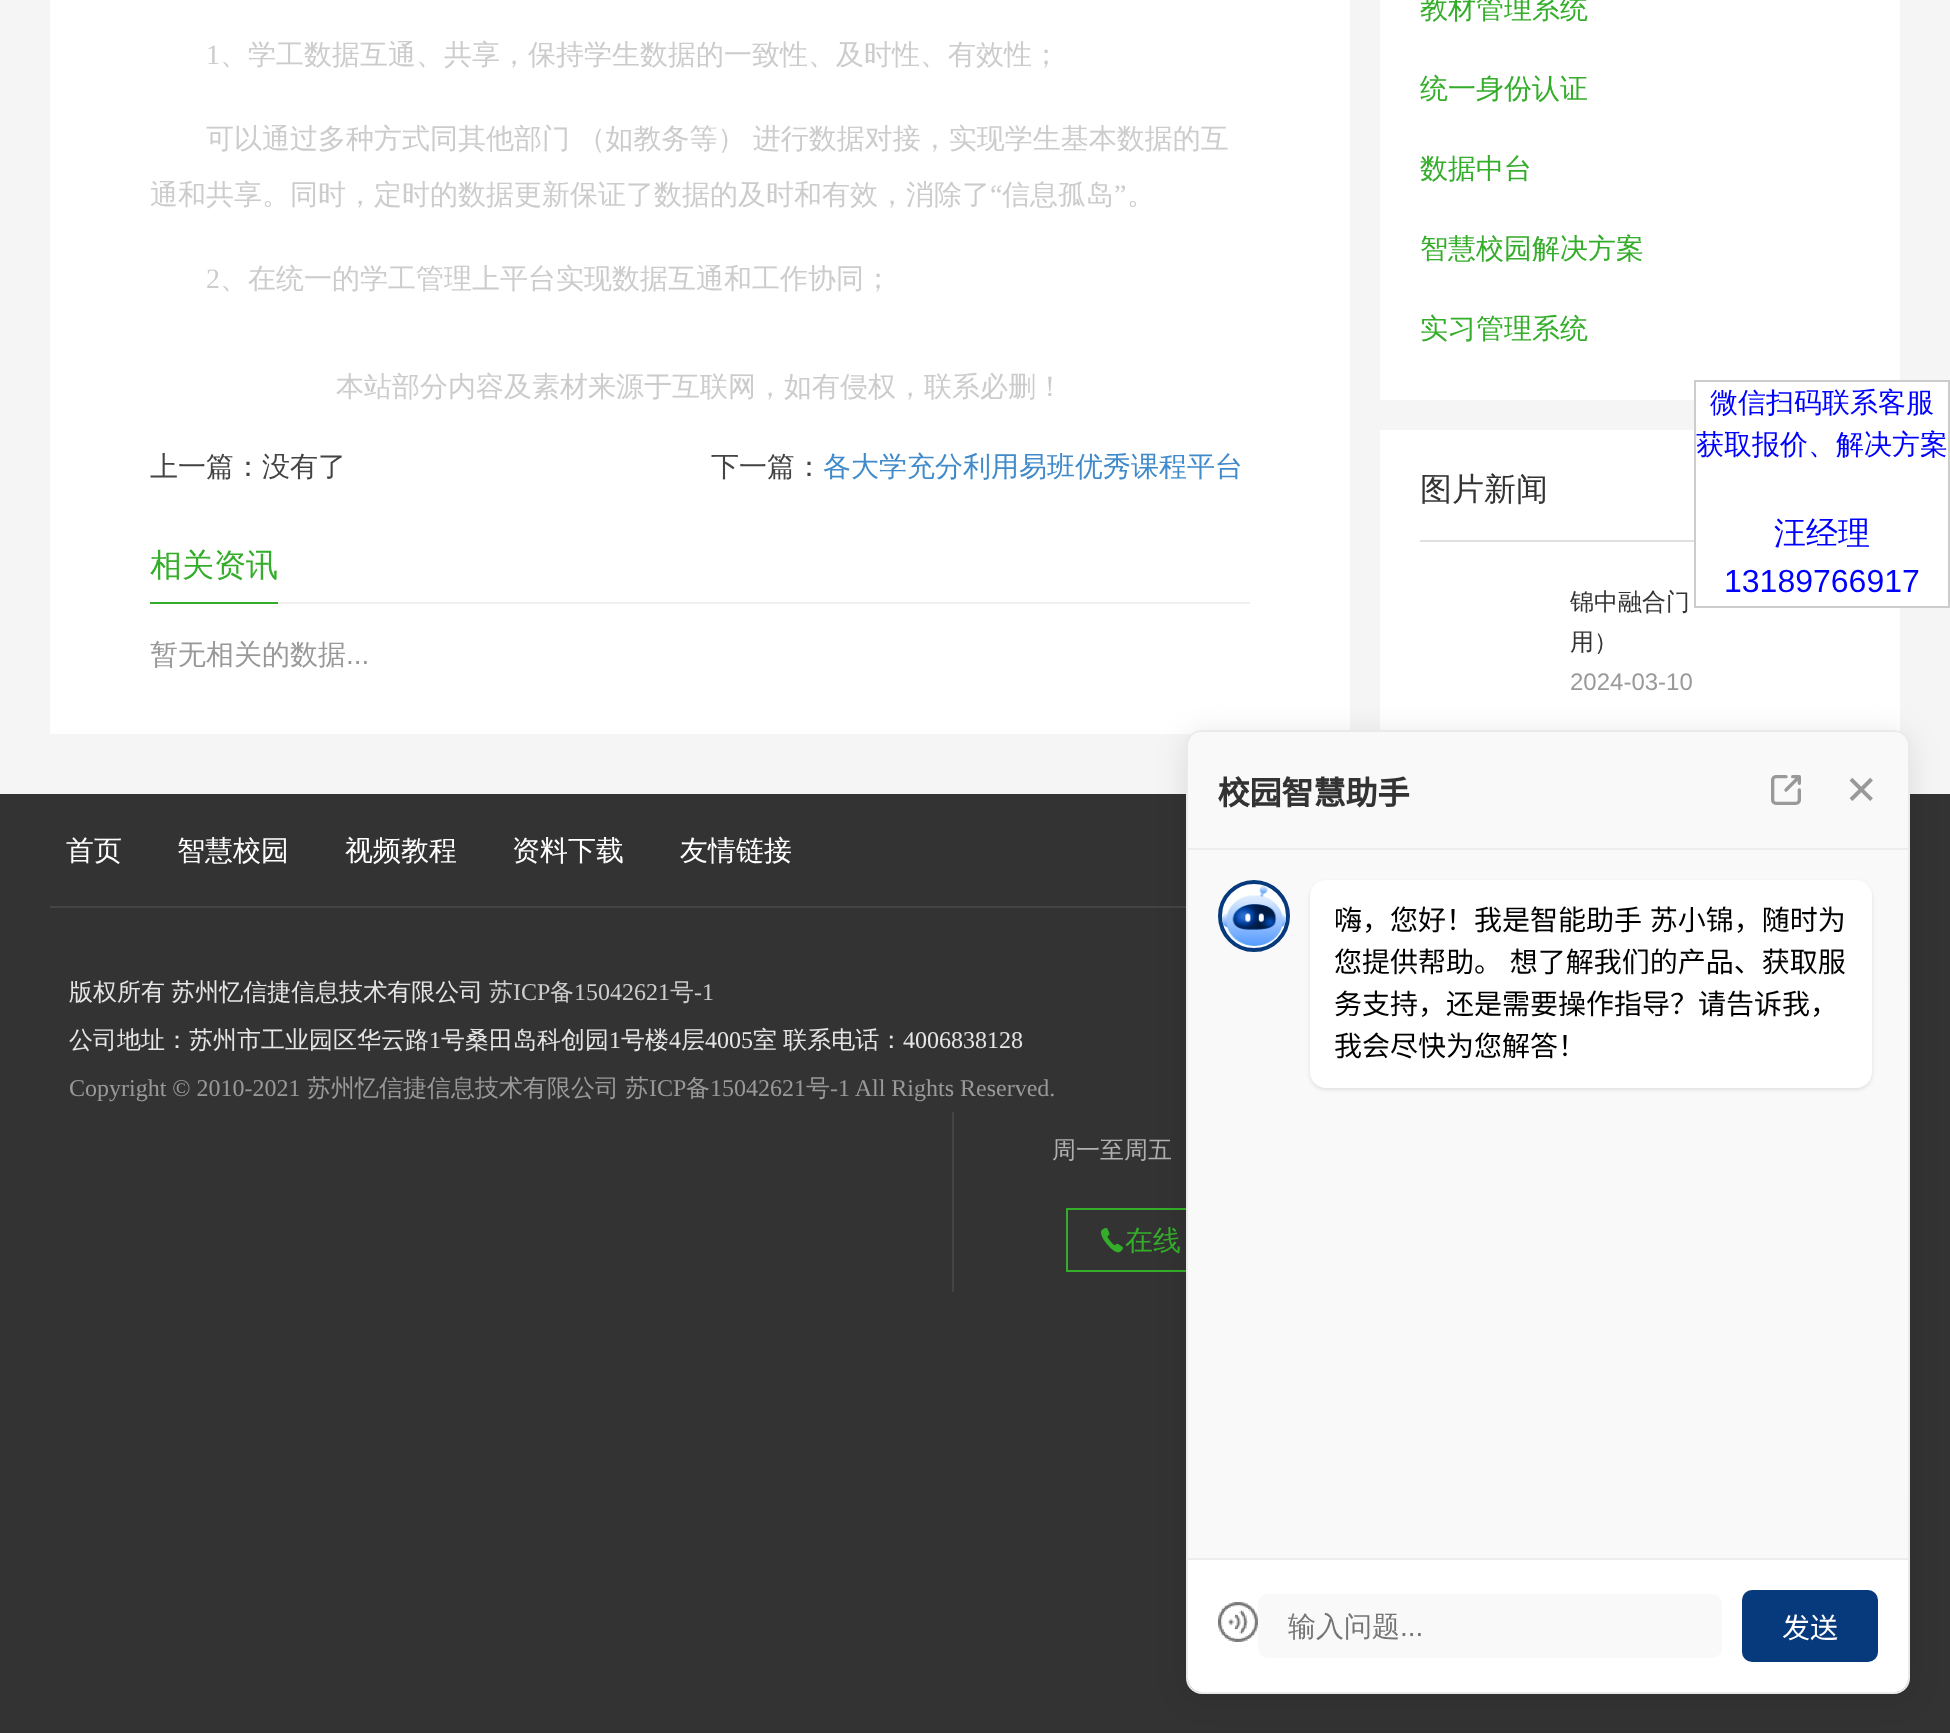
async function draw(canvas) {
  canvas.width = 1950
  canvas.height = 1733
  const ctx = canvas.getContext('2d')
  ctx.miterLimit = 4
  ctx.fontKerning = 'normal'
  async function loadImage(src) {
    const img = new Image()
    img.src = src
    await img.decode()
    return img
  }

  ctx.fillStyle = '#f5f5f5'
  ctx.fillRect(0, 0, 1950, 1733)
  ctx.fillStyle = '#fff'
  ctx.fillRect(1380, 0, 520, 400)
  ctx.font = '500 28px WenQuanYi Zen Hei'
  ctx.fillStyle = '#34ad2a'
  ctx.fillText('教材管理系统', 1420, 18)
  ctx.fillText('统一身份认证', 1420, 98)
  ctx.fillText('数据中台', 1420, 178)
  ctx.fillText('智慧校园解决方案', 1420, 258)
  ctx.fillText('实习管理系统', 1420, 338)
  ctx.fillStyle = '#fff'
  ctx.fillRect(1380, 430, 520, 304)
  ctx.fillStyle = '#e0e0e0'
  ctx.fillRect(1420, 540, 274, 2)
  ctx.font = '500 32px WenQuanYi Zen Hei'
  ctx.fillStyle = '#333'
  ctx.fillText('图片新闻', 1420, 500)
  ctx.font = '500 24px WenQuanYi Zen Hei'
  ctx.fillText('锦中融合门', 1570, 610)
  ctx.fillText('用）', 1570, 650)
  ctx.font = '24px Liberation Sans'
  ctx.fillStyle = '#999'
  ctx.fillText('2024-03-10', 1570, 690)
  ctx.fillStyle = '#fff'
  ctx.fillRect(50, 0, 1300, 734)
  ctx.font = '28px Liberation Serif'
  ctx.fillStyle = '#ccc'
  ctx.fillText('1', 206, 64)
  ctx.font = '500 28px WenQuanYi Zen Hei'
  ctx.fillText('、学工数据互通、共享，保持学生数据的一致性、及时性、有效性；', 220, 64)
  ctx.wordSpacing = '-1px'
  ctx.fillText('可以通过多种方式同其他部门 （如教务等） 进行数据对接，实现学生基本数据的互', 206, 148)
  ctx.wordSpacing = '0px'
  ctx.fillText('通和共享。同时，定时的数据更新保证了数据的及时和有效，消除了', 150, 204)
  ctx.font = '28px Liberation Serif'
  ctx.fillText('“', 990, 204)
  ctx.font = '500 28px WenQuanYi Zen Hei'
  ctx.fillText('信息孤岛', 1002, 204)
  ctx.font = '28px Liberation Serif'
  ctx.fillText('”', 1114, 204)
  ctx.font = '500 28px WenQuanYi Zen Hei'
  ctx.fillText('。', 1127, 204)
  ctx.font = '28px Liberation Serif'
  ctx.fillText('2', 206, 288)
  ctx.font = '500 28px WenQuanYi Zen Hei'
  ctx.fillText('、在统一的学工管理上平台实现数据互通和工作协同；', 220, 288)
  ctx.fillText('本站部分内容及素材来源于互联网，如有侵权，联系必删！', 336, 396)
  ctx.fillStyle = '#444'
  ctx.fillText('上一篇：没有了', 150, 476)
  ctx.fillText('下一篇：', 711, 476)
  ctx.fillStyle = '#428bca'
  ctx.fillText('各大学充分利用易班优秀课程平台', 823, 476)
  ctx.fillStyle = '#f0f0f0'
  ctx.fillRect(278, 602, 972, 2)
  ctx.fillStyle = '#34ad2a'
  ctx.fillRect(150, 602, 128, 2)
  ctx.font = '500 32px WenQuanYi Zen Hei'
  ctx.fillText('相关资讯', 150, 576)
  ctx.font = '500 28px WenQuanYi Zen Hei'
  ctx.fillStyle = '#999'
  ctx.fillText('暂无相关的数据', 150, 664)
  ctx.font = '28px Liberation Sans'
  ctx.fillText('...', 346, 664)
  ctx.fillStyle = '#fff'
  ctx.beginPath()
  ctx.rect(1695, 381, 254, 226)
  ctx.fill()
  ctx.strokeStyle = '#ccc'
  ctx.lineWidth = 2
  ctx.stroke()
  ctx.font = '500 28px WenQuanYi Zen Hei'
  ctx.fillStyle = '#00f'
  ctx.fillText('微信扫码联系客服', 1710, 412)
  ctx.fillText('获取报价、解决方案', 1696, 454)
  ctx.font = '500 32px WenQuanYi Zen Hei'
  ctx.fillText('汪经理', 1774, 544)
  ctx.font = '32px Liberation Sans'
  ctx.fillText('13189766917', 1724, 592)
  ctx.fillStyle = '#333'
  ctx.fillRect(0, 794, 1950, 939)
  ctx.fillStyle = '#444'
  ctx.fillRect(50, 906, 1136, 2)
  ctx.font = '500 28px WenQuanYi Zen Hei'
  ctx.fillStyle = '#fff'
  ctx.fillText('首页', 66, 860)
  ctx.fillText('智慧校园', 177, 860)
  ctx.fillText('视频教程', 345, 860)
  ctx.fillText('资料下载', 512, 860)
  ctx.fillText('友情链接', 680, 860)
  ctx.wordSpacing = '-1px'
  ctx.font = '500 24px WenQuanYi Zen Hei'
  ctx.fillStyle = '#e5e5e5'
  ctx.fillText('版权所有 苏州忆信捷信息技术有限公司', 69, 1000)
  ctx.wordSpacing = '0px'
  ctx.fillStyle = '#ccc'
  ctx.fillText('苏', 489, 1000)
  ctx.font = '24px Liberation Serif'
  ctx.fillText('ICP', 513, 1000)
  ctx.font = '500 24px WenQuanYi Zen Hei'
  ctx.fillText('备', 550, 1000)
  ctx.font = '24px Liberation Serif'
  ctx.fillText('15042621', 574, 1000)
  ctx.font = '500 24px WenQuanYi Zen Hei'
  ctx.fillText('号', 670, 1000)
  ctx.font = '24px Liberation Serif'
  ctx.fillText('-1', 694, 1000)
  ctx.font = '500 24px WenQuanYi Zen Hei'
  ctx.fillStyle = '#e5e5e5'
  ctx.fillText('公司地址：苏州市工业园区华云路', 69, 1048)
  ctx.font = '24px Liberation Serif'
  ctx.fillText('1', 429, 1048)
  ctx.font = '500 24px WenQuanYi Zen Hei'
  ctx.fillText('号桑田岛科创园', 441, 1048)
  ctx.font = '24px Liberation Serif'
  ctx.fillText('1', 609, 1048)
  ctx.font = '500 24px WenQuanYi Zen Hei'
  ctx.fillText('号楼', 621, 1048)
  ctx.font = '24px Liberation Serif'
  ctx.fillText('4', 669, 1048)
  ctx.font = '500 24px WenQuanYi Zen Hei'
  ctx.fillText('层', 681, 1048)
  ctx.font = '24px Liberation Serif'
  ctx.fillText('4005', 705, 1048)
  ctx.wordSpacing = '-1px'
  ctx.font = '500 24px WenQuanYi Zen Hei'
  ctx.fillText('室 联系电话：', 753, 1048)
  ctx.wordSpacing = '0px'
  ctx.font = '24px Liberation Serif'
  ctx.fillText('4006838128', 903, 1048)
  ctx.fillStyle = '#999'
  ctx.fillText('Copyright © 2010-2021', 69, 1096)
  ctx.font = '500 24px WenQuanYi Zen Hei'
  ctx.fillText('苏州忆信捷信息技术有限公司', 307, 1096)
  ctx.fillText('苏', 625, 1096)
  ctx.font = '24px Liberation Serif'
  ctx.fillText('ICP', 649, 1096)
  ctx.font = '500 24px WenQuanYi Zen Hei'
  ctx.fillText('备', 686, 1096)
  ctx.font = '24px Liberation Serif'
  ctx.fillText('15042621', 710, 1096)
  ctx.font = '500 24px WenQuanYi Zen Hei'
  ctx.fillText('号', 806, 1096)
  ctx.font = '24px Liberation Serif'
  ctx.fillText('-1 All Rights Reserved.', 830, 1096)
  ctx.fillStyle = '#444'
  ctx.fillRect(952, 1112, 2, 180)
  ctx.font = '500 24px WenQuanYi Zen Hei'
  ctx.fillStyle = '#b0b0b0'
  ctx.fillText('周一至周五', 1052, 1158)
  ctx.strokeStyle = '#34ad2a'
  ctx.strokeRect(1067, 1209, 202, 62)
  ctx.drawImage(await loadImage('image0.png'), 1101, 1227, 22, 26)
  ctx.font = '500 28px WenQuanYi Zen Hei'
  ctx.fillStyle = '#34ad2a'
  ctx.fillText('在线', 1125, 1250)
  ctx.fillStyle = '#0000001a'
  ctx.filter = 'blur(15px)'
  ctx.beginPath()
  ctx.roundRect(1186, 734, 724, 964, 16)
  ctx.fill()
  ctx.filter = 'none'
  ctx.beginPath()
  ctx.roundRect(1187, 731, 722, 962, 15)
  ctx.strokeStyle = '#eaeaea'
  ctx.stroke()
  ctx.drawImage(await loadImage('image1.png'), 1188, 732, 720, 960)
}

draw(document.querySelector('canvas'))
